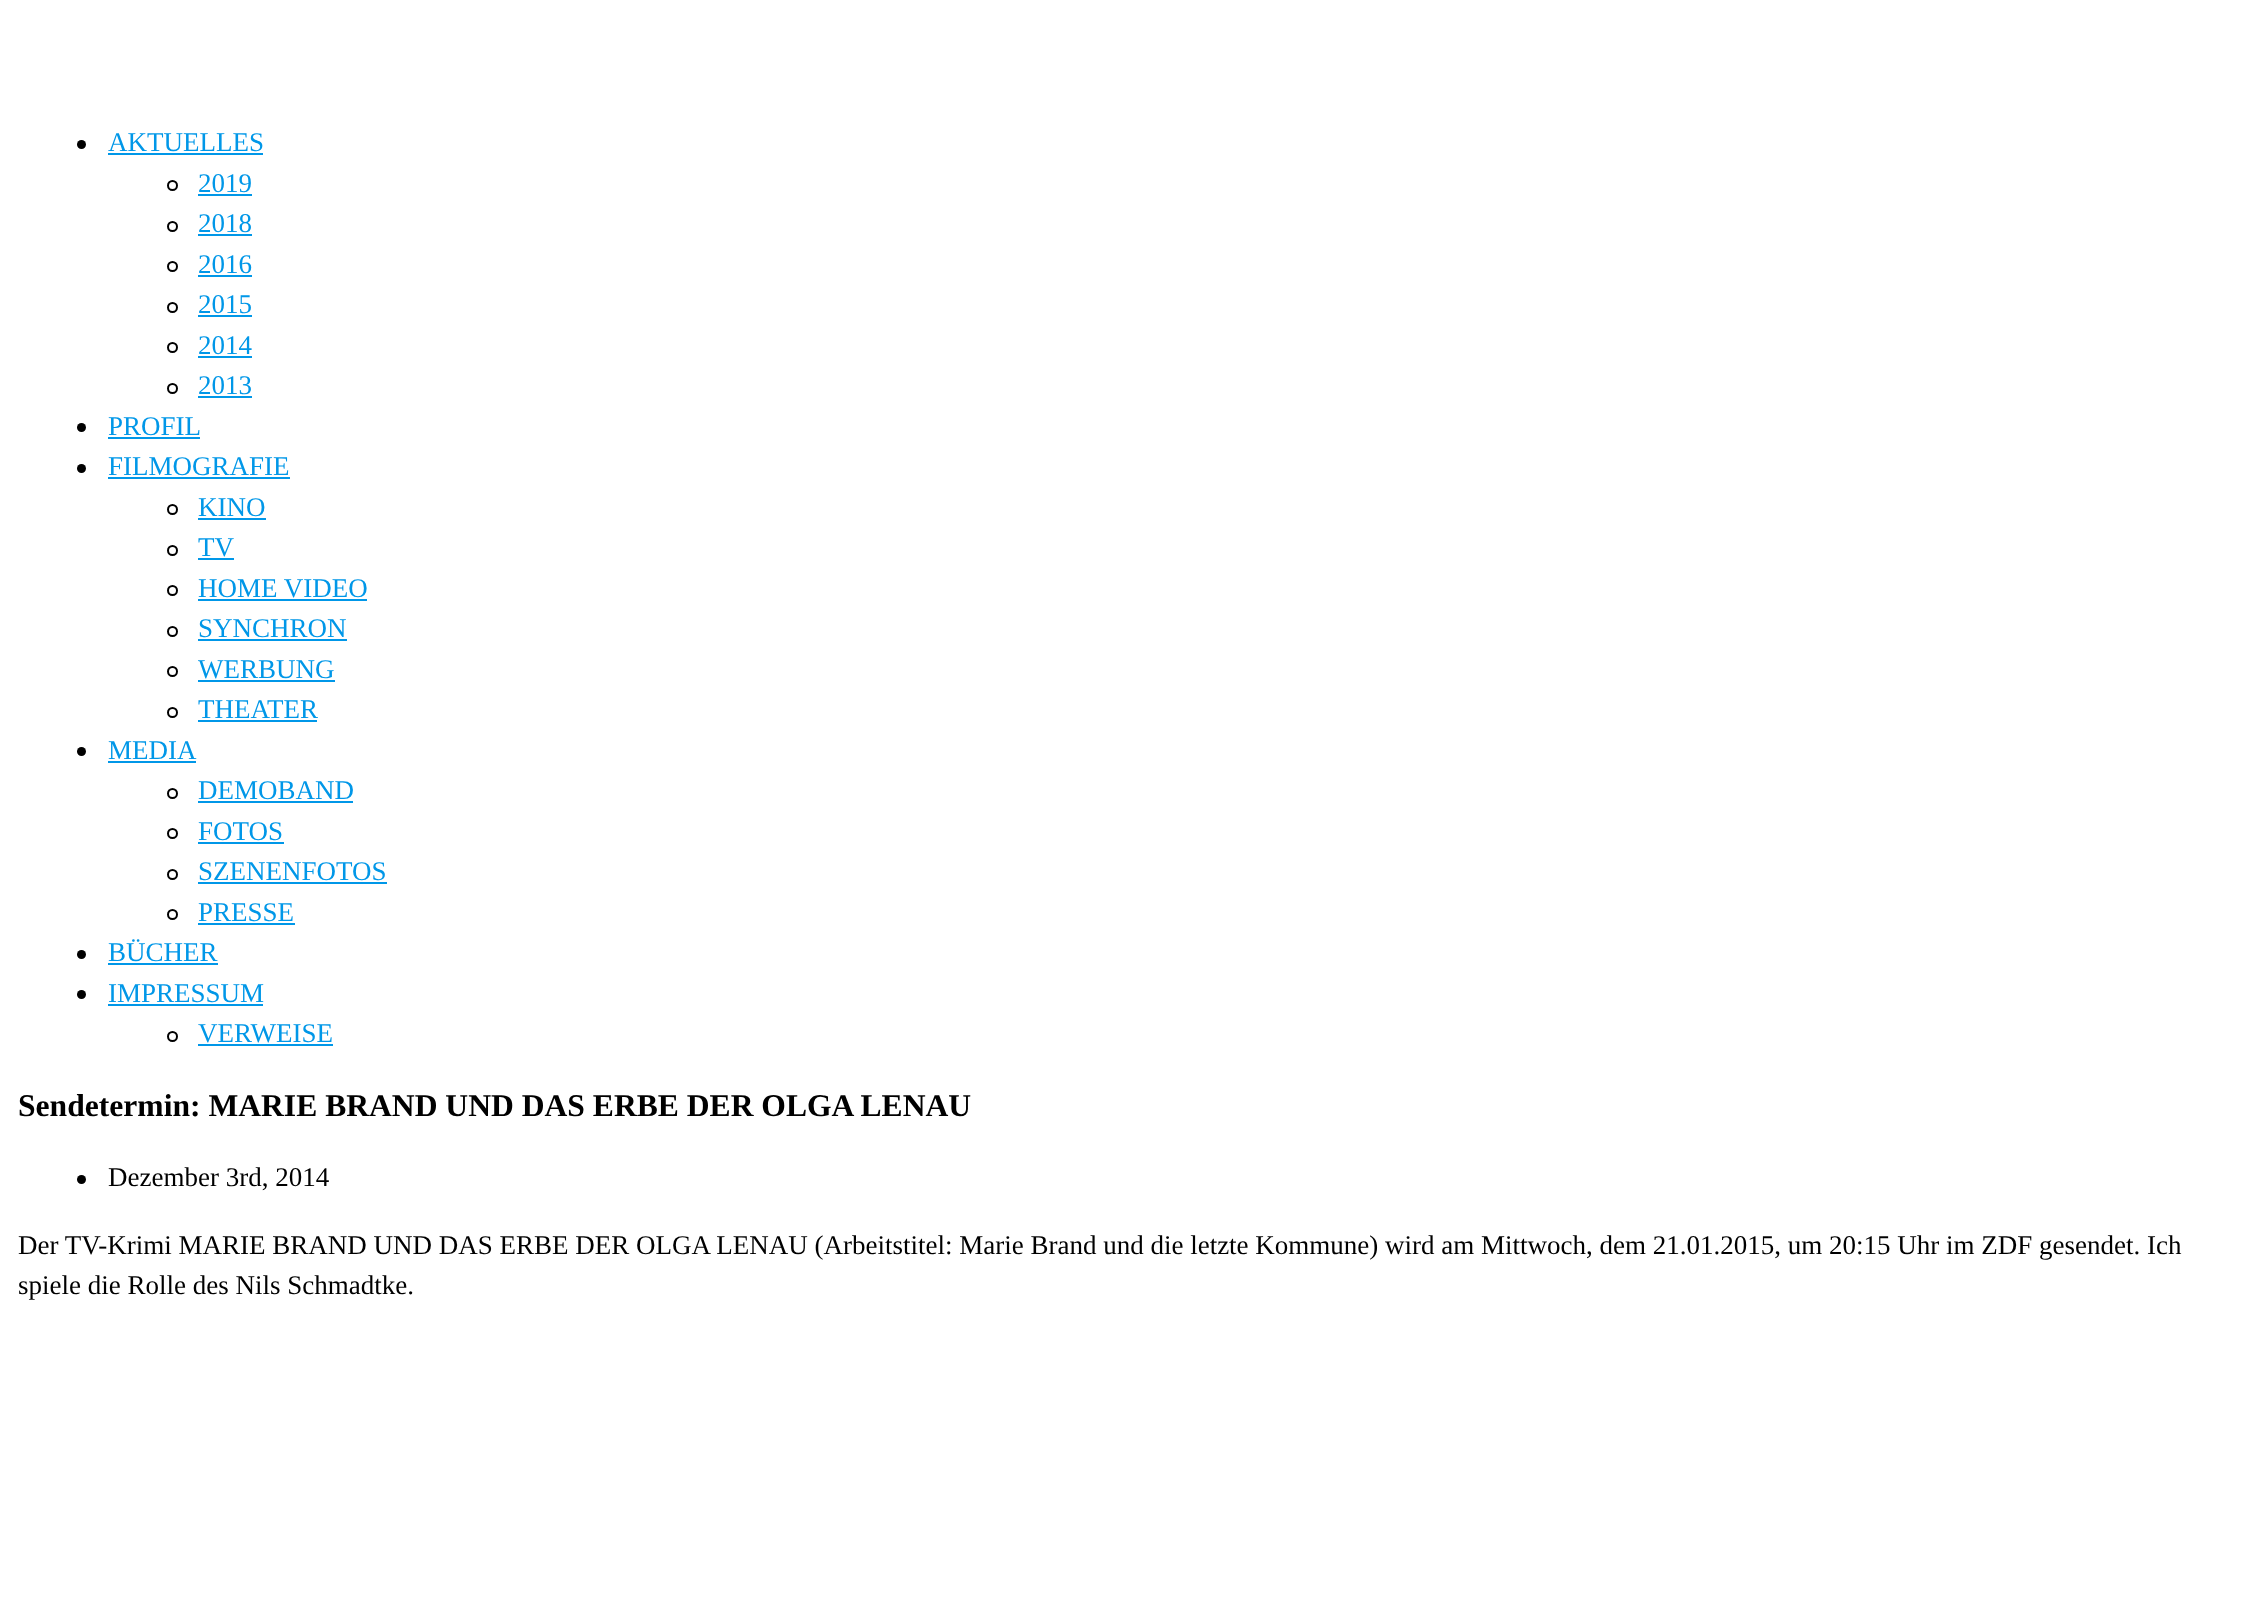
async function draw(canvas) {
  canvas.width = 2268
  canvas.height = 1612
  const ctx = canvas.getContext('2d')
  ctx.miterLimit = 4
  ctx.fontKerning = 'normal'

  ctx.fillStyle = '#fff'
  ctx.fillRect(0, 0, 2268, 1612)
  ctx.fillStyle = '#000'
  ctx.beginPath()
  ctx.arc(81.5, 144.5, 4.5, 0, 2 * Math.PI)
  ctx.fill()
  ctx.font = '27px Liberation Serif'
  ctx.fillStyle = '#0097e8'
  ctx.fillText('AKTUELLES', 108, 151)
  ctx.fillRect(108, 153, 155, 2)
  ctx.beginPath()
  ctx.arc(172.5, 185.5, 4.5, 0, 2 * Math.PI)
  ctx.strokeStyle = '#000'
  ctx.lineWidth = 2
  ctx.stroke()
  ctx.fillText('2019', 198, 192)
  ctx.fillRect(198, 194, 54, 2)
  ctx.beginPath()
  ctx.arc(172.5, 226.5, 4.5, 0, 2 * Math.PI)
  ctx.stroke()
  ctx.fillText('2018', 198, 232)
  ctx.fillRect(198, 234, 54, 2)
  ctx.beginPath()
  ctx.arc(172.5, 266.5, 4.5, 0, 2 * Math.PI)
  ctx.stroke()
  ctx.fillText('2016', 198, 273)
  ctx.fillRect(198, 275, 54, 2)
  ctx.beginPath()
  ctx.arc(172.5, 307.5, 4.5, 0, 2 * Math.PI)
  ctx.stroke()
  ctx.fillText('2015', 198, 313)
  ctx.fillRect(198, 315, 54, 2)
  ctx.beginPath()
  ctx.arc(172.5, 347.5, 4.5, 0, 2 * Math.PI)
  ctx.stroke()
  ctx.fillText('2014', 198, 354)
  ctx.fillRect(198, 356, 54, 2)
  ctx.beginPath()
  ctx.arc(172.5, 388.5, 4.5, 0, 2 * Math.PI)
  ctx.stroke()
  ctx.fillText('2013', 198, 394)
  ctx.fillRect(198, 396, 54, 2)
  ctx.fillStyle = '#000'
  ctx.beginPath()
  ctx.arc(81.5, 427.5, 4.5, 0, 2 * Math.PI)
  ctx.fill()
  ctx.fillStyle = '#0097e8'
  ctx.fillText('PROFIL', 108, 435)
  ctx.fillRect(108, 437, 92, 2)
  ctx.fillStyle = '#000'
  ctx.beginPath()
  ctx.arc(81.5, 468.5, 4.5, 0, 2 * Math.PI)
  ctx.fill()
  ctx.fillStyle = '#0097e8'
  ctx.fillText('FILMOGRAFIE', 108, 475)
  ctx.fillRect(108, 477, 182, 2)
  ctx.beginPath()
  ctx.arc(172.5, 509.5, 4.5, 0, 2 * Math.PI)
  ctx.stroke()
  ctx.fillText('KINO', 198, 516)
  ctx.fillRect(198, 518, 68, 2)
  ctx.beginPath()
  ctx.arc(172.5, 550.5, 4.5, 0, 2 * Math.PI)
  ctx.stroke()
  ctx.fillText('TV', 198, 556)
  ctx.fillRect(198, 558, 36, 2)
  ctx.beginPath()
  ctx.arc(172.5, 590.5, 4.5, 0, 2 * Math.PI)
  ctx.stroke()
  ctx.fillText('HOME VIDEO', 198, 597)
  ctx.fillRect(198, 599, 169, 2)
  ctx.beginPath()
  ctx.arc(172.5, 631.5, 4.5, 0, 2 * Math.PI)
  ctx.stroke()
  ctx.fillText('SYNCHRON', 198, 637)
  ctx.fillRect(198, 639, 149, 2)
  ctx.beginPath()
  ctx.arc(172.5, 671.5, 4.5, 0, 2 * Math.PI)
  ctx.stroke()
  ctx.fillText('WERBUNG', 198, 678)
  ctx.fillRect(198, 680, 137, 2)
  ctx.beginPath()
  ctx.arc(172.5, 712.5, 4.5, 0, 2 * Math.PI)
  ctx.stroke()
  ctx.fillText('THEATER', 198, 718)
  ctx.fillRect(198, 720, 119, 2)
  ctx.fillStyle = '#000'
  ctx.beginPath()
  ctx.arc(81.5, 751.5, 4.5, 0, 2 * Math.PI)
  ctx.fill()
  ctx.fillStyle = '#0097e8'
  ctx.fillText('MEDIA', 108, 759)
  ctx.fillRect(108, 761, 88, 2)
  ctx.beginPath()
  ctx.arc(172.5, 793.5, 4.5, 0, 2 * Math.PI)
  ctx.stroke()
  ctx.fillText('DEMOBAND', 198, 799)
  ctx.fillRect(198, 801, 155, 2)
  ctx.beginPath()
  ctx.arc(172.5, 833.5, 4.5, 0, 2 * Math.PI)
  ctx.stroke()
  ctx.fillText('FOTOS', 198, 840)
  ctx.fillRect(198, 842, 86, 2)
  ctx.beginPath()
  ctx.arc(172.5, 874.5, 4.5, 0, 2 * Math.PI)
  ctx.stroke()
  ctx.fillText('SZENENFOTOS', 198, 880)
  ctx.fillRect(198, 882, 189, 2)
  ctx.beginPath()
  ctx.arc(172.5, 914.5, 4.5, 0, 2 * Math.PI)
  ctx.stroke()
  ctx.fillText('PRESSE', 198, 921)
  ctx.fillRect(198, 923, 97, 2)
  ctx.fillStyle = '#000'
  ctx.beginPath()
  ctx.arc(81.5, 954.5, 4.5, 0, 2 * Math.PI)
  ctx.fill()
  ctx.fillStyle = '#0097e8'
  ctx.fillText('BÜCHER', 108, 961)
  ctx.fillRect(108, 963, 110, 2)
  ctx.fillStyle = '#000'
  ctx.beginPath()
  ctx.arc(81.5, 994.5, 4.5, 0, 2 * Math.PI)
  ctx.fill()
  ctx.fillStyle = '#0097e8'
  ctx.fillText('IMPRESSUM', 108, 1002)
  ctx.fillRect(108, 1004, 155, 2)
  ctx.beginPath()
  ctx.arc(172.5, 1036.5, 4.5, 0, 2 * Math.PI)
  ctx.stroke()
  ctx.fillText('VERWEISE', 198, 1042)
  ctx.fillRect(198, 1044, 135, 2)
  ctx.font = 'bold 31.6px Liberation Serif'
  ctx.fillStyle = '#000'
  ctx.fillText('Sendetermin: MARIE BRAND UND DAS ERBE DER OLGA LENAU', 18, 1116)
  ctx.beginPath()
  ctx.arc(81.5, 1179.5, 4.5, 0, 2 * Math.PI)
  ctx.fill()
  ctx.font = '27px Liberation Serif'
  ctx.fillText('Dezember 3rd, 2014', 108, 1186)
  ctx.fillText('Der TV-Krimi MARIE BRAND UND DAS ERBE DER OLGA LENAU (Arbeitstitel: Marie Brand und die letzte Kommune) wird am Mittwoch, dem 21.01.2015, um 20:15 Uhr im ZDF gesendet. Ich', 18, 1254)
  ctx.fillText('spiele die Rolle des Nils Schmadtke.', 18, 1294)
}

draw(document.querySelector('canvas'))
